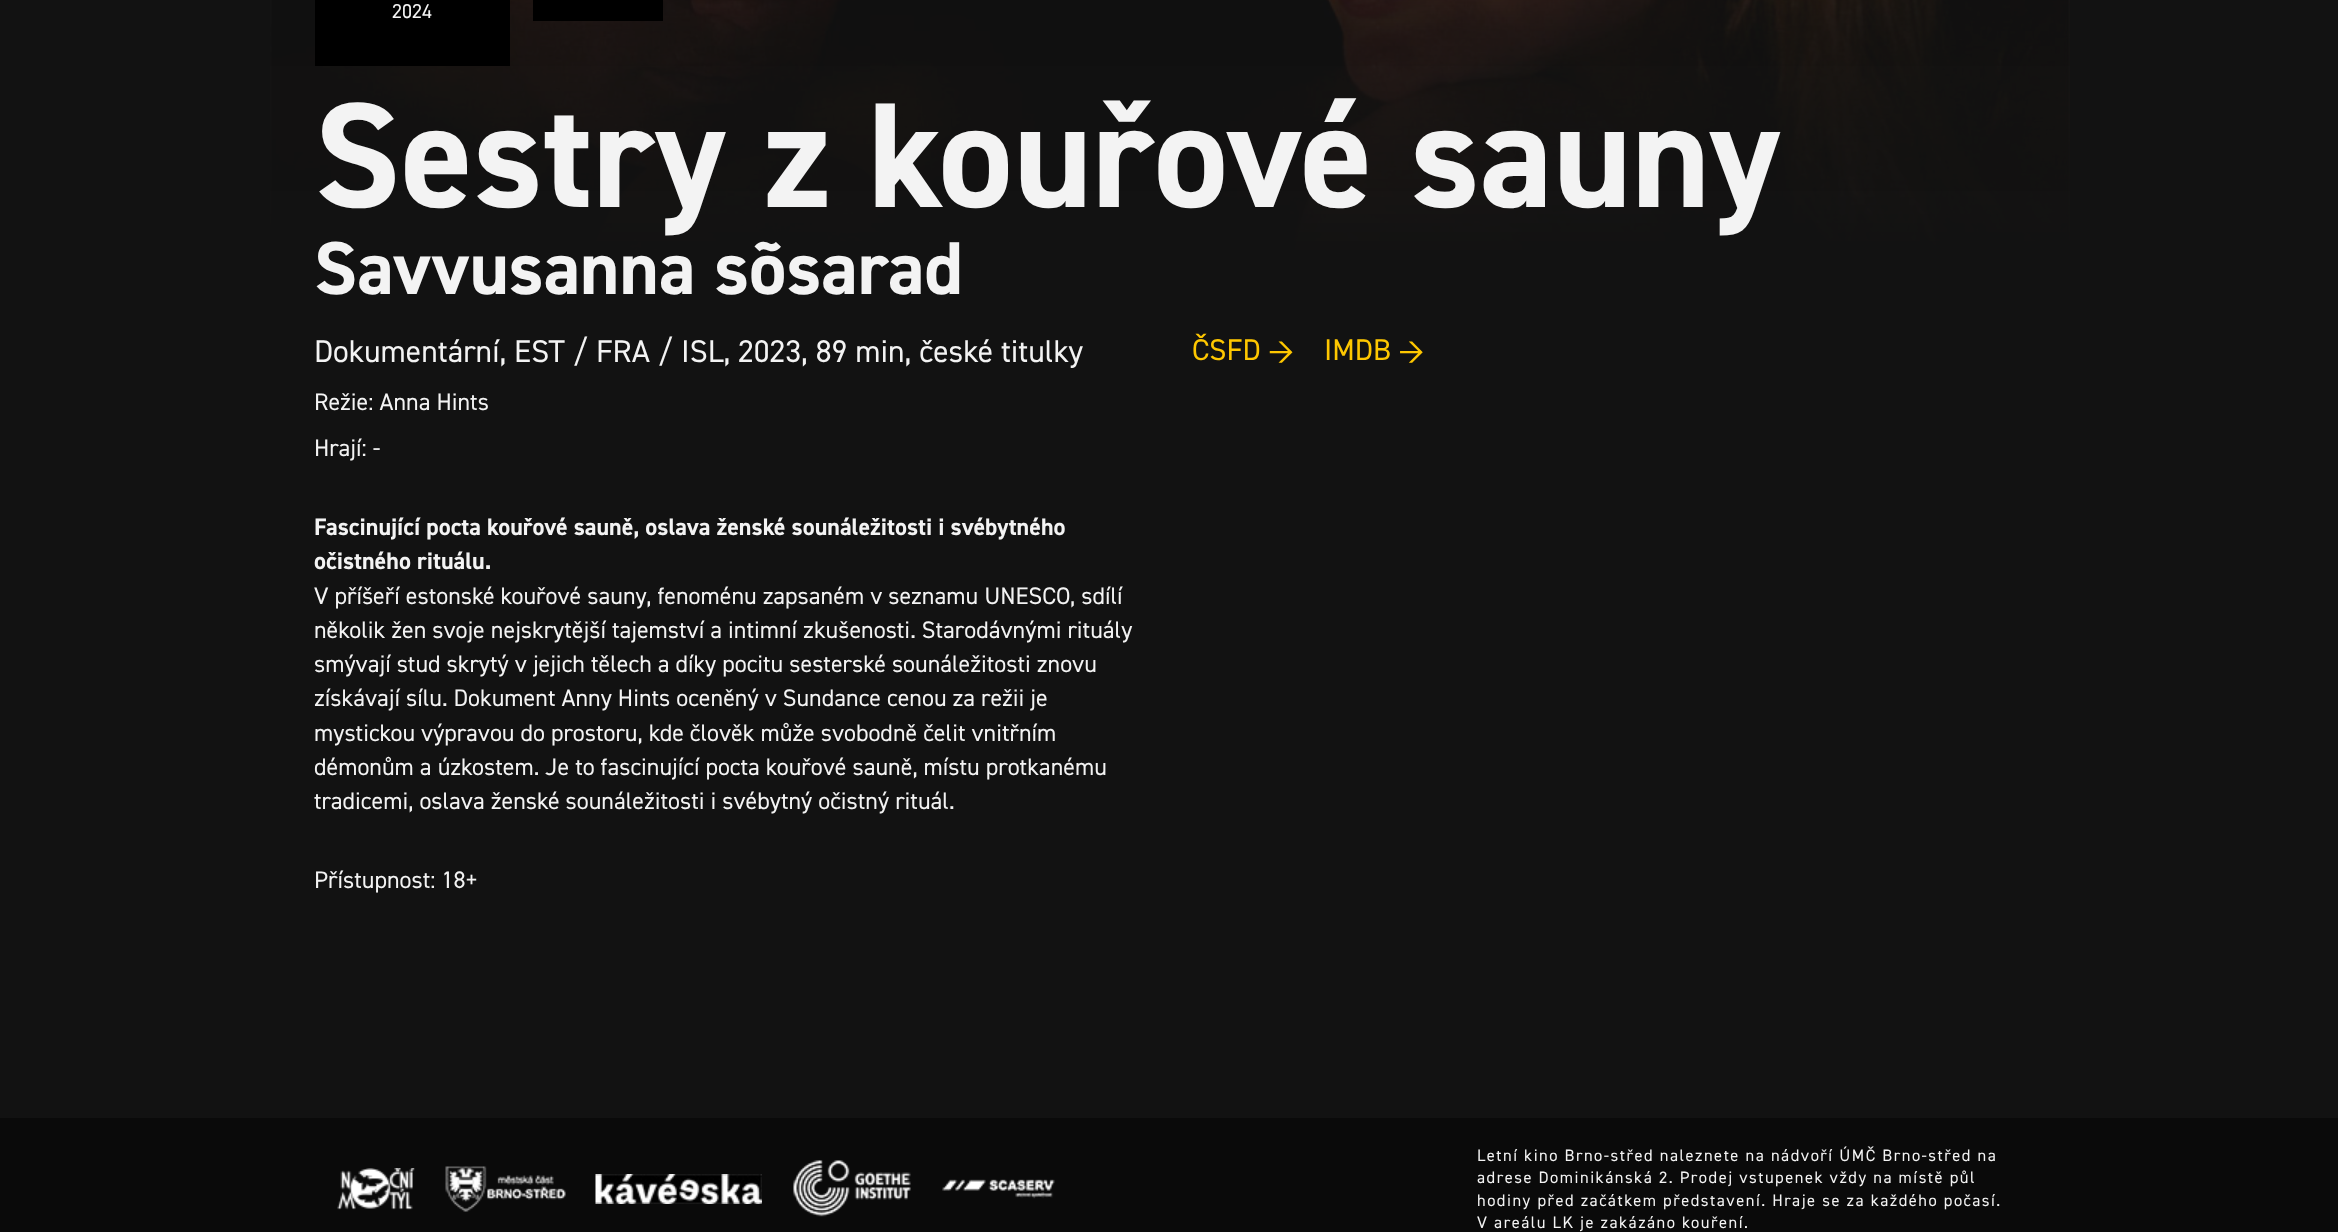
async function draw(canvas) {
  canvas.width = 2338
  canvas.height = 1232
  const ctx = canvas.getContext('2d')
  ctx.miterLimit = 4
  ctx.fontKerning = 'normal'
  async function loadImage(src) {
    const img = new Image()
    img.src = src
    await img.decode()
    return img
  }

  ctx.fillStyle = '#121212'
  ctx.fillRect(0, 0, 2338, 1232)
  ctx.drawImage(await loadImage('image0.png'), 270, 0, 1800, 253)
  ctx.fillStyle = '#000'
  ctx.fillRect(315, 0, 195, 66)
  ctx.font = '20px "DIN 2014"'
  ctx.fillStyle = '#f3f3f3'
  ctx.fillText('2024', 392, 18)
  ctx.fillStyle = '#000'
  ctx.fillRect(533, 0, 130, 21)
  ctx.font = 'bold 150px "DIN 2014"'
  ctx.fillStyle = '#f3f3f3'
  ctx.fillText('Sestry z kouřové sauny', 314, 207)
  ctx.font = 'bold 75px "DIN 2014"'
  ctx.fillText('Savvusanna sõsarad', 314, 294)
  ctx.font = '31.5px "DIN 2014"'
  ctx.fillText('Dokumentární, EST / FRA / ISL, 2023, 89 min, české titulky', 314, 362)
  ctx.font = '24px "DIN 2014"'
  ctx.fillText('Režie: Anna Hints', 314, 410)
  ctx.fillText('Hrají: -', 314, 456)
  ctx.font = 'bold 24px "DIN 2014"'
  ctx.fillText('Fascinující pocta kouřové sauně, oslava ženské sounáležitosti i svébytného', 314, 535)
  ctx.fillText('očistného rituálu.', 314, 569)
  ctx.font = '24px "DIN 2014"'
  ctx.fillText('V příšeří estonské kouřové sauny, fenoménu zapsaném v seznamu UNESCO, sdílí', 314, 604)
  ctx.fillText('několik žen svoje nejskrytější tajemství a intimní zkušenosti. Starodávnými rituály', 314, 638)
  ctx.fillText('smývají stud skrytý v jejich tělech a díky pocitu sesterské sounáležitosti znovu', 314, 672)
  ctx.fillText('získávají sílu. Dokument Anny Hints oceněný v Sundance cenou za režii je', 314, 706)
  ctx.fillText('mystickou výpravou do prostoru, kde člověk může svobodně čelit vnitřním', 314, 741)
  ctx.fillText('démonům a úzkostem. Je to fascinující pocta kouřové sauně, místu protkanému', 314, 775)
  ctx.fillText('tradicemi, oslava ženské sounáležitosti i svébytný očistný rituál.', 314, 809)
  ctx.fillText('Přístupnost: 18+', 314, 888)
  ctx.font = '30px "DIN 2014"'
  ctx.fillStyle = '#fec700'
  ctx.fillText('ČSFD →', 1192, 360)
  ctx.fillText('IMDB →', 1324, 360)
  ctx.fillStyle = '#0a0a0a'
  ctx.fillRect(0, 1118, 2338, 114)
  ctx.drawImage(await loadImage('image1.png'), 337, 1168, 78, 42)
  ctx.drawImage(await loadImage('image2.png'), 445, 1166, 121, 46)
  ctx.drawImage(await loadImage('image3.png'), 595, 1174, 167, 30)
  ctx.drawImage(await loadImage('image4.png'), 793, 1160, 118, 57)
  ctx.drawImage(await loadImage('image5.png'), 942, 1179, 113, 20)
  ctx.letterSpacing = '1.5px'
  ctx.font = '16.5px "DIN 2014"'
  ctx.fillStyle = '#f3f3f3'
  ctx.fillText('Letní kino Brno-střed naleznete na nádvoří ÚMČ Brno-střed na', 1477, 1161)
  ctx.fillText('adrese Dominikánská 2. Prodej vstupenek vždy na místě půl', 1477, 1183)
  ctx.fillText('hodiny před začátkem představení. Hraje se za každého počasí.', 1477, 1206)
  ctx.fillText('V areálu LK je zakázáno kouření.', 1477, 1228)
}

draw(document.querySelector('canvas'))
